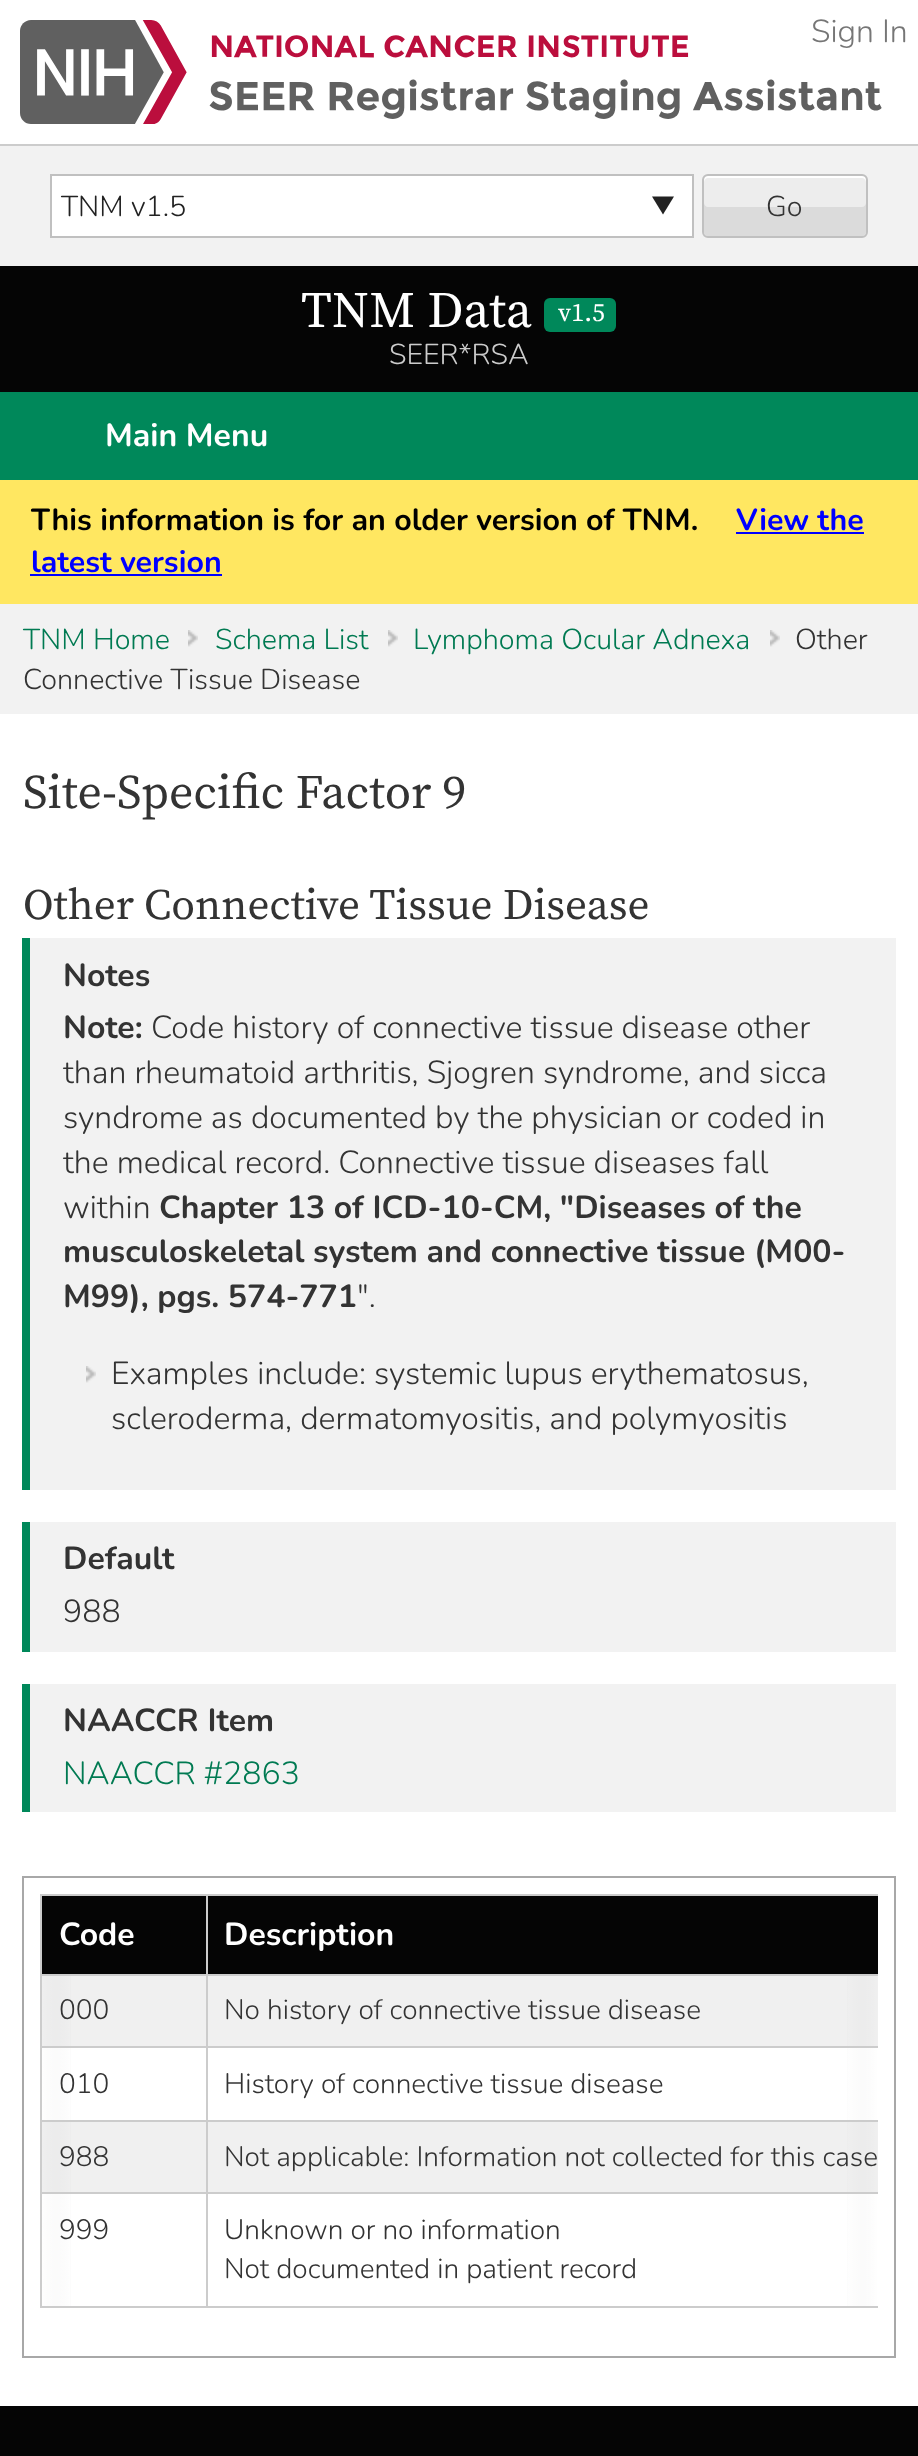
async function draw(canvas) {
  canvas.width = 918
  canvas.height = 2456
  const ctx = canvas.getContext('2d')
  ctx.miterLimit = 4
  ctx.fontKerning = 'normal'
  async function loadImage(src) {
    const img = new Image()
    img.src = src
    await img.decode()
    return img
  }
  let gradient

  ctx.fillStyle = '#050505'
  ctx.fillRect(0, 0, 918, 2456)
  ctx.fillStyle = '#fff'
  ctx.fillRect(0, 0, 918, 144)
  ctx.drawImage(await loadImage('image0.png'), 20, 20, 862, 104)
  ctx.font = '200 32px "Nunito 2"'
  ctx.fillStyle = '#767676'
  ctx.fillText('Sign In', 811, 42)
  ctx.fillStyle = '#f2f2f2'
  ctx.fillRect(0, 146, 918, 120)
  ctx.fillStyle = '#ccc'
  ctx.fillRect(0, 144, 918, 2)
  ctx.fillStyle = '#fff'
  ctx.fillRect(52, 176, 640, 60)
  ctx.fillStyle = '#222'
  ctx.beginPath()
  ctx.moveTo(674, 196.5)
  ctx.lineTo(663, 214.5)
  ctx.lineTo(652, 196.5)
  ctx.closePath()
  ctx.fill()
  ctx.strokeStyle = '#c0c0c0'
  ctx.lineWidth = 2
  ctx.strokeRect(51, 175, 642, 62)
  ctx.font = '200 28.75px "Nunito 2"'
  ctx.fillText('TNM v1.5', 61, 216)
  ctx.fillStyle = '#ededed'
  ctx.beginPath()
  ctx.roundRect(702, 174, 166, 64, 6)
  ctx.fill()
  ctx.fillStyle = '#fff'
  ctx.beginPath()
  ctx.moveTo(708, 178)
  ctx.lineTo(862, 178)
  ctx.bezierCurveTo(864, 178, 866, 180, 866, 182)
  ctx.lineTo(866, 180)
  ctx.bezierCurveTo(866, 178, 864, 176, 862, 176)
  ctx.lineTo(708, 176)
  ctx.bezierCurveTo(706, 176, 704, 178, 704, 180)
  ctx.lineTo(704, 182)
  ctx.bezierCurveTo(704, 180, 706, 178, 708, 178)
  ctx.closePath()
  ctx.fill()
  ctx.fillStyle = '#dbdbdb'
  ctx.beginPath()
  ctx.moveTo(704, 203)
  ctx.lineTo(704, 232)
  ctx.bezierCurveTo(704, 234, 706, 236, 708, 236)
  ctx.lineTo(862, 236)
  ctx.bezierCurveTo(864, 236, 866, 234, 866, 232)
  ctx.lineTo(866, 203)
  ctx.bezierCurveTo(866, 205, 864, 207, 862, 207)
  ctx.lineTo(708, 207)
  ctx.bezierCurveTo(706, 207, 704, 205, 704, 203)
  ctx.closePath()
  ctx.fill()
  ctx.beginPath()
  ctx.roundRect(703, 175, 164, 62, 5)
  ctx.stroke()
  ctx.fillStyle = '#333'
  ctx.fillText('Go', 766, 216)
  ctx.font = '51px Source Serif Pro'
  ctx.fillStyle = '#fff'
  ctx.fillText('TNM Data', 301, 327)
  ctx.fillStyle = '#00885a'
  ctx.beginPath()
  ctx.roundRect(544, 298, 72, 34, 6)
  ctx.fill()
  ctx.font = '26px Source Serif Pro'
  ctx.fillStyle = '#fff'
  ctx.fillText('v1.5', 558, 321)
  ctx.font = '200 28.75px "Nunito 2"'
  ctx.fillStyle = '#ccc'
  ctx.fillText('SEER*RSA', 389, 364)
  ctx.fillStyle = '#00885a'
  ctx.fillRect(0, 392, 918, 88)
  ctx.font = '200 32px Nunito'
  ctx.fillStyle = '#fff'
  ctx.fillText('Main Menu', 105, 446)
  ctx.fillStyle = '#ffe761'
  ctx.fillRect(0, 480, 918, 124)
  ctx.font = '200 30.4px Nunito'
  ctx.fillStyle = '#000'
  ctx.fillText('This information is for an older version of TNM.', 31, 530)
  ctx.fillStyle = '#00f'
  ctx.fillText('View the', 736, 530)
  ctx.fillRect(736, 532, 128, 2)
  ctx.fillText('latest version', 31, 572)
  ctx.fillRect(30, 574, 192, 2)
  ctx.fillStyle = '#f2f2f2'
  ctx.fillRect(0, 604, 918, 110)
  ctx.drawImage(await loadImage('image1.png'), 188, 630, 10, 17)
  ctx.font = '200 28.75px "Nunito 2"'
  ctx.fillStyle = '#007a52'
  ctx.fillText('TNM Home', 23, 649)
  ctx.drawImage(await loadImage('image1.png'), 388, 630, 10, 17)
  ctx.fillText('Schema List', 215, 649)
  ctx.drawImage(await loadImage('image1.png'), 770, 630, 10, 17)
  ctx.fillText('Lymphoma Ocular Adnexa', 413, 649)
  ctx.fillStyle = '#333'
  ctx.fillText('Other', 795, 649)
  ctx.fillText('Connective Tissue Disease', 23, 689)
  ctx.fillStyle = '#fff'
  ctx.fillRect(0, 714, 918, 1692)
  ctx.font = '48px Source Serif Pro'
  ctx.fillStyle = '#333'
  ctx.fillText('Site-Specific Factor 9', 23, 808)
  ctx.font = '43.25px Source Serif Pro'
  ctx.fillText('Other Connective Tissue Disease', 23, 919)
  ctx.fillStyle = '#f2f2f2'
  ctx.fillRect(30, 938, 866, 552)
  ctx.fillStyle = '#00885a'
  ctx.fillRect(22, 938, 8, 552)
  ctx.font = '200 32px Nunito'
  ctx.fillStyle = '#333'
  ctx.fillText('Notes', 63, 986)
  ctx.fillText('Note:', 63, 1038)
  ctx.font = '200 32px "Nunito 2"'
  ctx.fillText('Code history of connective tissue disease other', 151, 1038)
  ctx.fillText('than rheumatoid arthritis, Sjogren syndrome, and sicca', 63, 1083)
  ctx.fillText('syndrome as documented by the physician or coded in', 63, 1128)
  ctx.fillText('the medical record. Connective tissue diseases fall', 63, 1173)
  ctx.fillText('within', 63, 1218)
  ctx.font = '200 32px Nunito'
  ctx.fillText('Chapter 13 of ICD-10-CM, "Diseases of the', 159, 1218)
  ctx.fillText('musculoskeletal system and connective tissue (M00-', 63, 1262)
  ctx.fillText('M99), pgs. 574-771', 63, 1307)
  ctx.font = '200 32px "Nunito 2"'
  ctx.fillText('".', 357, 1307)
  ctx.drawImage(await loadImage('image1.png'), 86, 1366, 10, 17)
  ctx.fillText('Examples include: systemic lupus erythematosus,', 111, 1384)
  ctx.fillText('scleroderma, dermatomyositis, and polymyositis', 111, 1429)
  ctx.fillStyle = '#f2f2f2'
  ctx.fillRect(30, 1522, 866, 130)
  ctx.fillStyle = '#00885a'
  ctx.fillRect(22, 1522, 8, 130)
  ctx.font = '200 32px Nunito'
  ctx.fillStyle = '#333'
  ctx.fillText('Default', 63, 1569)
  ctx.font = '200 32px "Nunito 2"'
  ctx.fillText('988', 63, 1622)
  ctx.fillStyle = '#f2f2f2'
  ctx.fillRect(30, 1684, 866, 128)
  ctx.fillStyle = '#00885a'
  ctx.fillRect(22, 1684, 8, 128)
  ctx.font = '200 32px Nunito'
  ctx.fillStyle = '#333'
  ctx.fillText('NAACCR Item', 63, 1731)
  ctx.font = '200 32px "Nunito 2"'
  ctx.fillStyle = '#007a52'
  ctx.fillText('NAACCR #2863', 63, 1784)
  ctx.strokeStyle = '#a8a8a8'
  ctx.strokeRect(23, 1877, 872, 480)
  gradient = ctx.createLinearGradient(878, 2101, 846, 2101)
  gradient.addColorStop(0, '#c3c3c5')
  gradient.addColorStop(1, '#fff')
  ctx.fillStyle = gradient
  ctx.fillRect(847, 1976, 30, 330)
  gradient = ctx.createLinearGradient(40, 2101, 72, 2101)
  gradient.addColorStop(0, '#c3c3c5')
  gradient.addColorStop(1, '#fff')
  ctx.fillStyle = gradient
  ctx.fillRect(42, 1976, 29, 330)
  gradient = ctx.createLinearGradient(878, 2101, 750, 2101)
  gradient.addColorStop(0, '#fff')
  gradient.addColorStop(1, '#ffffff00')
  ctx.fillStyle = gradient
  ctx.fillRect(848, 1976, 29, 330)
  gradient = ctx.createLinearGradient(40, 2101, 168, 2101)
  gradient.addColorStop(0, '#fff')
  gradient.addColorStop(1, '#ffffff00')
  ctx.fillStyle = gradient
  ctx.fillRect(42, 1976, 28, 330)
  ctx.fillStyle = '#050505'
  ctx.fillRect(42, 1896, 164, 78)
  ctx.fillStyle = '#ccc'
  ctx.fillRect(206, 1894, 672, 2)
  ctx.fillRect(206, 1974, 672, 2)
  ctx.fillRect(206, 2046, 672, 2)
  ctx.fillRect(206, 2120, 672, 2)
  ctx.fillRect(206, 2192, 672, 2)
  ctx.fillRect(206, 2306, 672, 2)
  ctx.fillRect(206, 2192, 2, 116)
  ctx.fillRect(40, 2192, 168, 2)
  ctx.fillRect(206, 2120, 2, 74)
  ctx.fillRect(40, 2120, 168, 2)
  ctx.fillRect(206, 2046, 2, 76)
  ctx.fillRect(40, 2046, 168, 2)
  ctx.fillRect(206, 1974, 2, 74)
  ctx.fillRect(40, 1974, 168, 2)
  ctx.fillRect(206, 1894, 2, 82)
  ctx.fillRect(40, 1894, 168, 2)
  ctx.fillRect(40, 2306, 168, 2)
  ctx.fillRect(40, 2192, 2, 116)
  ctx.fillRect(40, 2120, 2, 74)
  ctx.fillRect(40, 2046, 2, 76)
  ctx.fillRect(40, 1974, 2, 74)
  ctx.fillRect(40, 1894, 2, 82)
  ctx.font = '200 32px Nunito'
  ctx.fillStyle = '#fff'
  ctx.fillText('Code', 59, 1945)
  ctx.fillStyle = '#050505'
  ctx.fillRect(208, 1896, 670, 78)
  ctx.fillStyle = '#fff'
  ctx.fillText('Description', 224, 1945)
  ctx.fillStyle = '#0000000f'
  ctx.fillRect(42, 1976, 164, 70)
  ctx.font = '200 28px "Nunito 2"'
  ctx.fillStyle = '#333'
  ctx.fillText('000', 59, 2019)
  ctx.fillStyle = '#0000000f'
  ctx.fillRect(208, 1976, 670, 70)
  ctx.fillStyle = '#333'
  ctx.fillText('No history of connective tissue disease', 224, 2019)
  ctx.fillText('010', 59, 2093)
  ctx.fillText('History of connective tissue disease', 224, 2093)
  ctx.fillStyle = '#0000000f'
  ctx.fillRect(42, 2122, 164, 70)
  ctx.fillStyle = '#333'
  ctx.fillText('988', 59, 2166)
  ctx.fillStyle = '#0000000f'
  ctx.fillRect(208, 2122, 670, 70)
  ctx.fillStyle = '#333'
  ctx.fillText('Not applicable: Information not collected for this case', 224, 2166)
  ctx.fillText('999', 59, 2239)
  ctx.fillText('Unknown or no information', 224, 2239)
  ctx.fillText('Not documented in patient record', 224, 2278)
}

draw(document.querySelector('canvas'))
